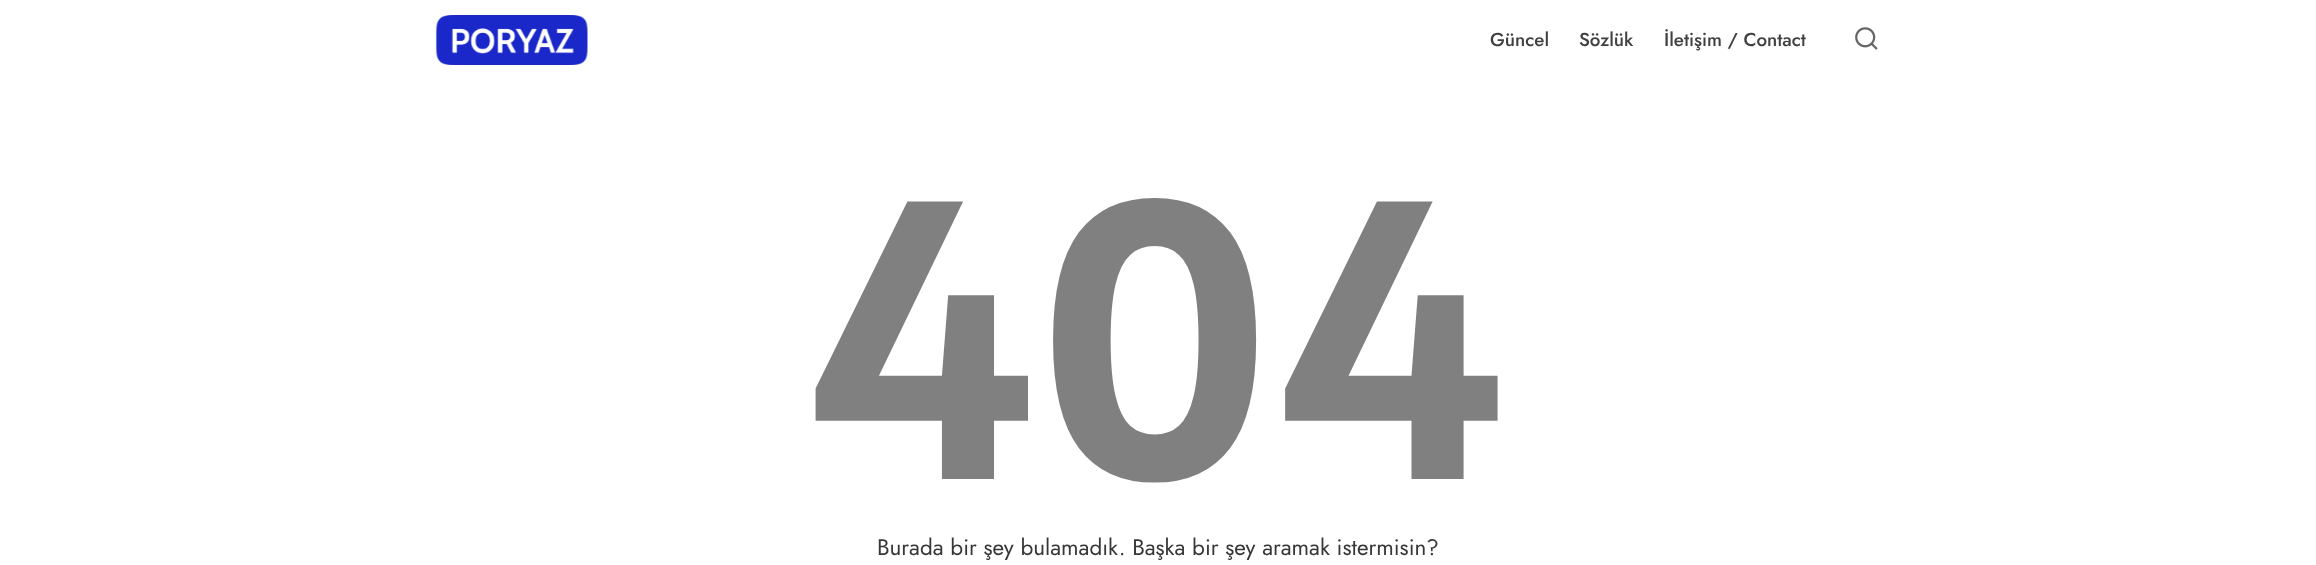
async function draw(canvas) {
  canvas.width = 2316
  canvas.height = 565
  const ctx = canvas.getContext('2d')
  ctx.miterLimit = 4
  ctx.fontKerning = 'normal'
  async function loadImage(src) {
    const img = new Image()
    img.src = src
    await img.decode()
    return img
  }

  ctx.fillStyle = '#fff'
  ctx.fillRect(0, 0, 2316, 565)
  ctx.drawImage(await loadImage('image0.png'), 435, 15, 153, 50)
  ctx.font = '500 18.75px Jost'
  ctx.fillStyle = '#404040'
  ctx.fillText('Güncel', 1490, 46)
  ctx.fillText('Sözlük', 1579, 46)
  ctx.fillText('İletişim / Contact', 1664, 46)
  ctx.drawImage(await loadImage('image1.png'), 1855, 27, 23, 23)
  ctx.letterSpacing = '5px'
  ctx.font = 'bold 375px Encode Sans Semi Condensed'
  ctx.fillStyle = '#808080'
  ctx.fillText('404', 809, 479)
  ctx.letterSpacing = '0px'
  ctx.font = '22.5px Jost'
  ctx.fillStyle = '#373737'
  ctx.fillText('Burada bir şey bulamadık. Başka bir şey aramak istermisin?', 877, 555)
}

draw(document.querySelector('canvas'))
